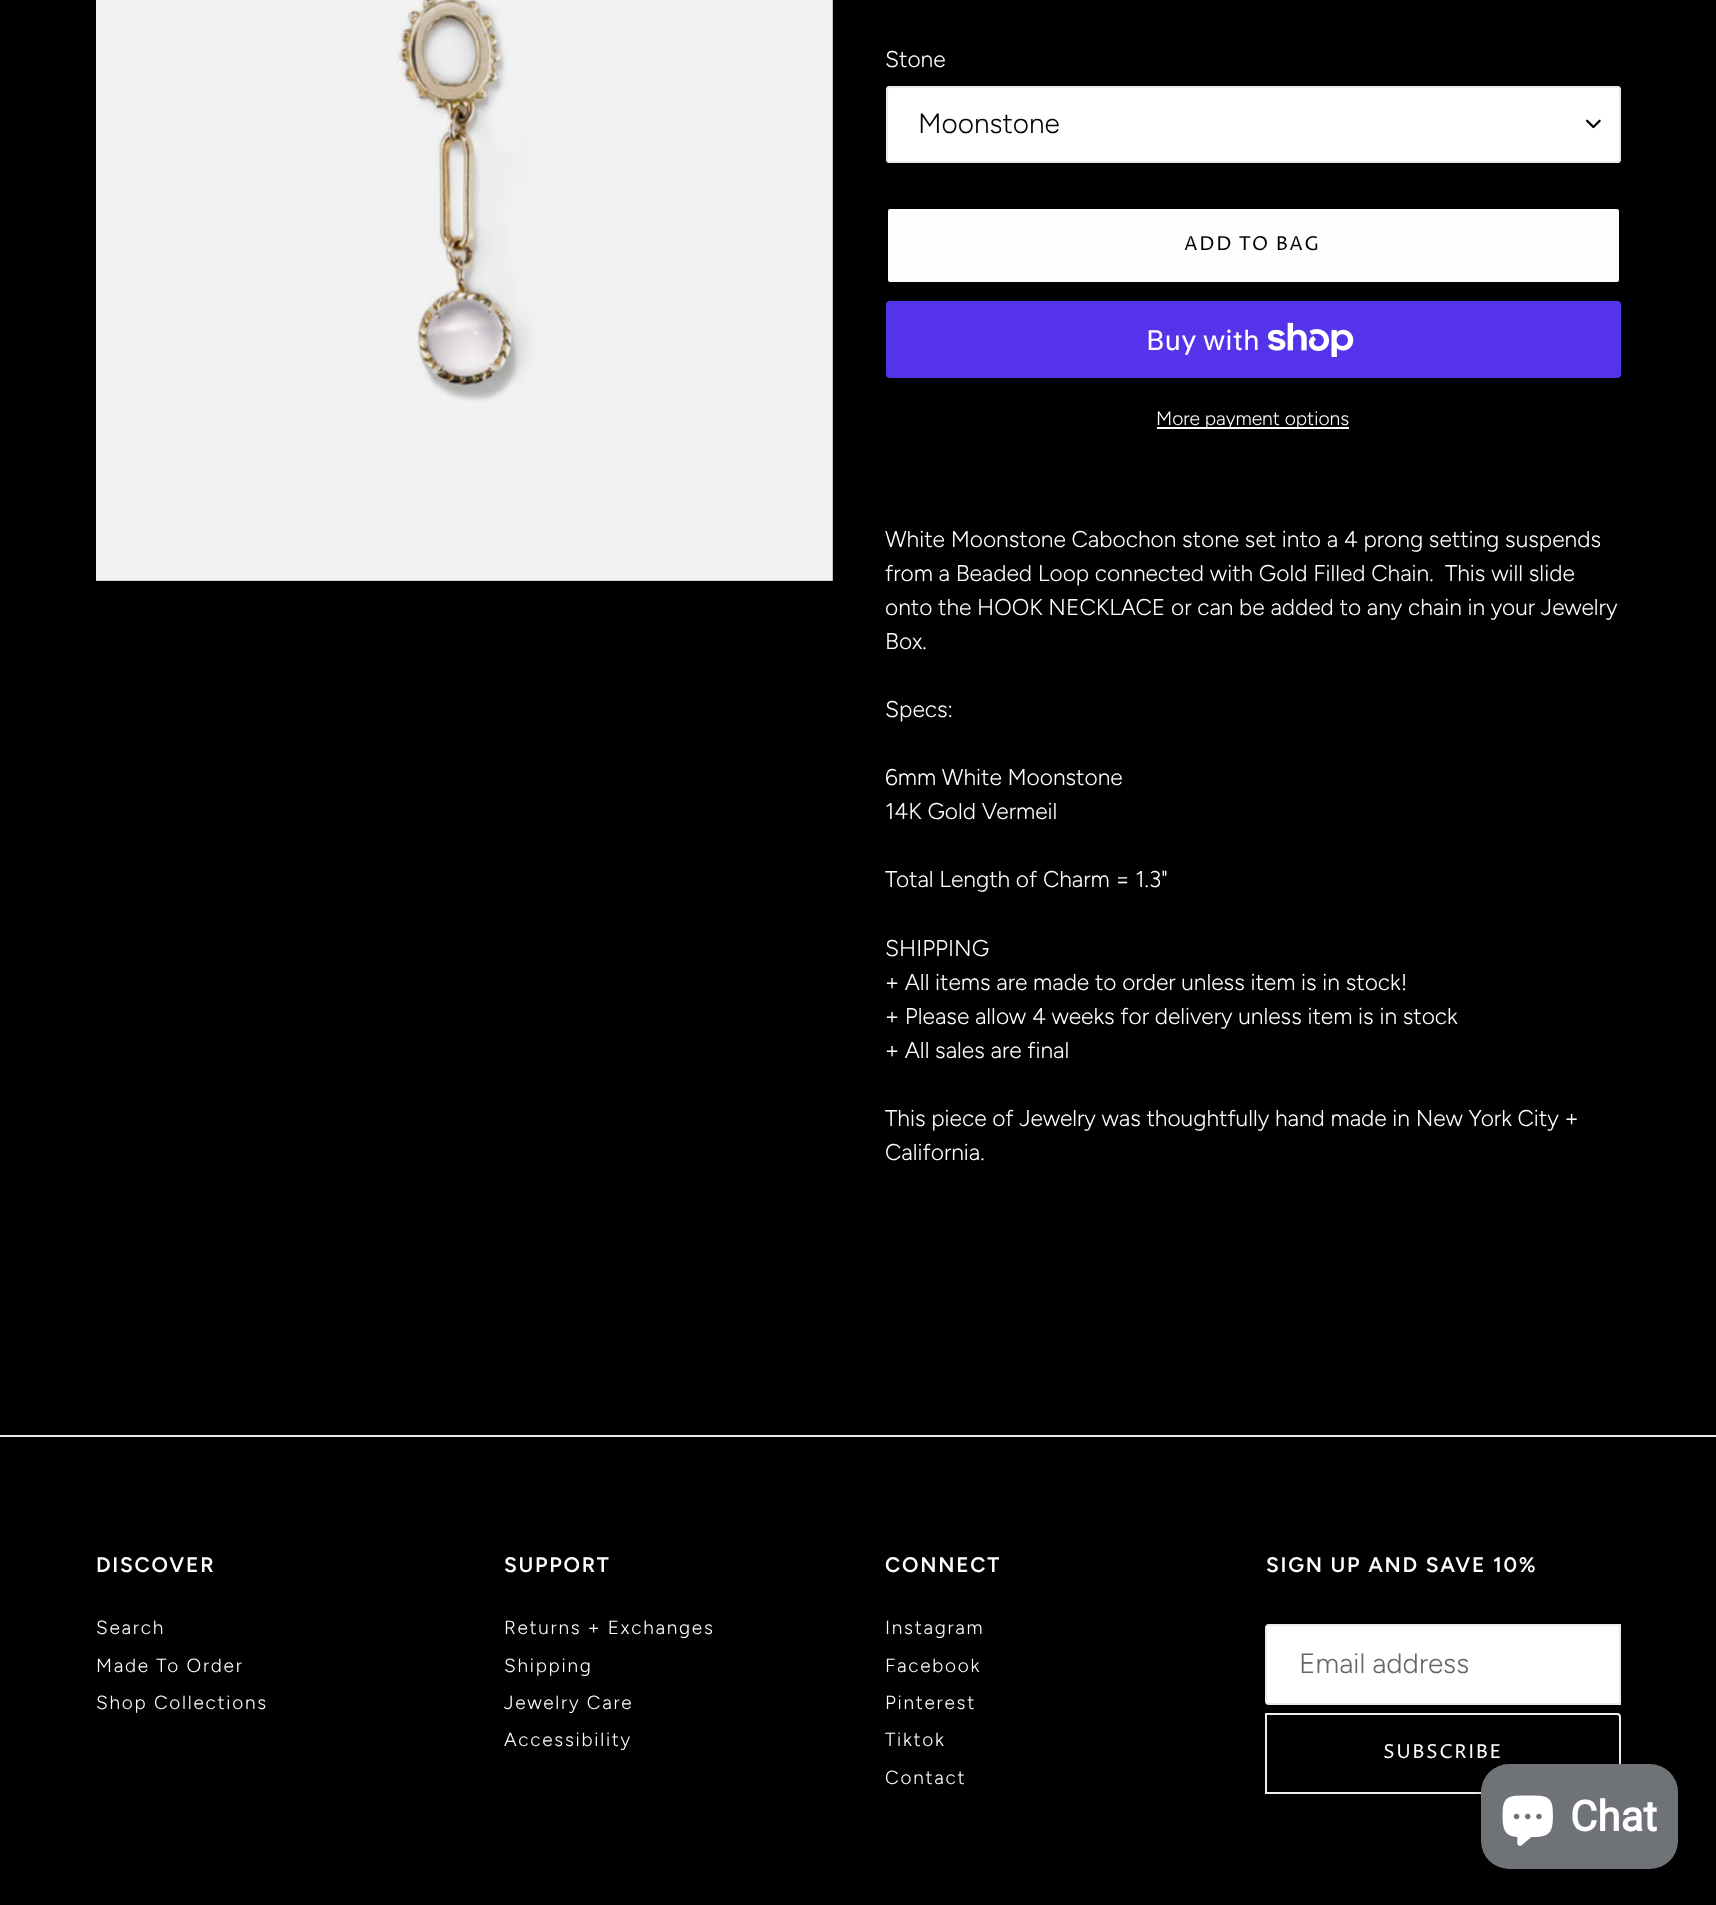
async function draw(canvas) {
  canvas.width = 1716
  canvas.height = 1905
  const ctx = canvas.getContext('2d')
  ctx.miterLimit = 4
  ctx.fontKerning = 'normal'
  async function loadImage(src) {
    const img = new Image()
    img.src = src
    await img.decode()
    return img
  }

  ctx.fillStyle = '#000'
  ctx.fillRect(0, 0, 1716, 1905)
  ctx.drawImage(await loadImage('image0.png'), 96, 0, 737, 581)
  ctx.font = '300 22.75px Figtree'
  ctx.fillStyle = '#fff'
  ctx.fillText('Stone', 885, 67)
  ctx.beginPath()
  ctx.roundRect(886, 86, 735, 77, 4)
  ctx.fill()
  ctx.drawImage(await loadImage('image1.png'), 1586, 119, 15, 10)
  ctx.beginPath()
  ctx.roundRect(887, 87, 733, 75, 3)
  ctx.strokeStyle = '#ebebeb'
  ctx.lineWidth = 2
  ctx.stroke()
  ctx.font = '300 28px Figtree'
  ctx.fillStyle = '#000'
  ctx.fillText('Moonstone', 918, 133)
  ctx.fillStyle = '#fffefd'
  ctx.beginPath()
  ctx.roundRect(887, 208, 733, 75, 3)
  ctx.fill()
  ctx.strokeStyle = '#000'
  ctx.stroke()
  ctx.letterSpacing = '1.5px'
  ctx.font = '19.25px Proza Libre'
  ctx.fillStyle = '#000'
  ctx.fillText('ADD TO BAG', 1184, 250)
  ctx.fillStyle = '#5433eb'
  ctx.beginPath()
  ctx.roundRect(886, 301, 735, 77, 4)
  ctx.fill()
  ctx.letterSpacing = '0px'
  ctx.font = '28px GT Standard'
  ctx.fillStyle = '#fff'
  ctx.fillText('Buy with', 1146, 350)
  ctx.drawImage(await loadImage('image2.png'), 1268, 322, 86, 35)
  ctx.fillRect(1157, 427, 192, 2)
  ctx.font = '300 19.25px Figtree'
  ctx.fillText('More payment options', 1156, 425)
  ctx.font = '300 22.75px Figtree'
  ctx.fillText('White Moonstone Cabochon stone set into a 4 prong setting suspends', 885, 547)
  ctx.fillText('from a Beaded Loop connected with Gold Filled Chain.  This will slide', 885, 581)
  ctx.fillText('onto the HOOK NECKLACE or can be added to any chain in your Jewelry', 885, 615)
  ctx.fillText('Box.', 885, 649)
  ctx.fillText('Specs:', 885, 717)
  ctx.fillText('6mm White Moonstone', 885, 785)
  ctx.fillText('14K Gold Vermeil', 885, 819)
  ctx.fillText('Total Length of Charm = 1.3"', 885, 887)
  ctx.fillText('SHIPPING', 885, 956)
  ctx.fillText('+ All items are made to order unless item is in stock!', 885, 990)
  ctx.fillText('+ Please allow 4 weeks for delivery unless item is in stock', 885, 1024)
  ctx.fillText('+ All sales are final', 885, 1058)
  ctx.fillText('This piece of Jewelry was thoughtfully hand made in New York City +', 885, 1126)
  ctx.fillText('California.', 885, 1160)
  ctx.fillStyle = '#ebebeb'
  ctx.fillRect(0, 1435, 1716, 2)
  ctx.letterSpacing = '1.75px'
  ctx.font = '600 21px Figtree'
  ctx.fillStyle = '#fff'
  ctx.fillText('DISCOVER', 96, 1572)
  ctx.font = '300 19px Figtree'
  ctx.fillText('Search', 96, 1634)
  ctx.fillText('Made To Order', 96, 1672)
  ctx.fillText('Shop Collections', 96, 1709)
  ctx.font = '600 21px Figtree'
  ctx.fillText('SUPPORT', 504, 1572)
  ctx.font = '300 19px Figtree'
  ctx.fillText('Returns + Exchanges', 504, 1634)
  ctx.fillText('Shipping', 504, 1672)
  ctx.fillText('Jewelry Care', 504, 1709)
  ctx.fillText('Accessibility', 504, 1746)
  ctx.font = '600 21px Figtree'
  ctx.fillText('CONNECT', 885, 1572)
  ctx.font = '300 19px Figtree'
  ctx.fillText('Instagram', 885, 1634)
  ctx.fillText('Facebook', 885, 1672)
  ctx.fillText('Pinterest', 885, 1709)
  ctx.fillText('Tiktok', 885, 1746)
  ctx.fillText('Contact', 885, 1784)
  ctx.font = '600 21px Figtree'
  ctx.fillText('SIGN UP AND SAVE 10%', 1266, 1572)
  ctx.beginPath()
  ctx.roundRect(1266, 1625, 354, 79, [3, 0, 0, 3])
  ctx.fill()
  ctx.strokeStyle = '#ebebeb'
  ctx.stroke()
  ctx.letterSpacing = '0px'
  ctx.font = '300 28px Figtree'
  ctx.fillStyle = '#666'
  ctx.fillText('Email address', 1299, 1673)
  ctx.beginPath()
  ctx.roundRect(1266, 1714, 354, 79, [0, 3, 3, 0])
  ctx.strokeStyle = '#eee'
  ctx.stroke()
  ctx.letterSpacing = '1.5px'
  ctx.font = '19.25px Proza Libre'
  ctx.fillStyle = '#fff'
  ctx.fillText('SUBSCRIBE', 1383, 1758)
  ctx.fillStyle = '#00000026'
  ctx.filter = 'blur(4.5px)'
  ctx.beginPath()
  ctx.roundRect(1481, 1764, 197, 105, 28)
  ctx.fill()
  ctx.filter = 'none'
  ctx.fillStyle = '#6f7378'
  ctx.beginPath()
  ctx.roundRect(1481, 1764, 197, 105, 28)
  ctx.fill()
  ctx.drawImage(await loadImage('image3.png'), 1502, 1795, 51, 51)
  ctx.letterSpacing = '0px'
  ctx.font = 'bold 42px Roboto'
  ctx.fillStyle = '#fff'
  ctx.fillText('Chat', 1570, 1831)
}

draw(document.querySelector('canvas'))
